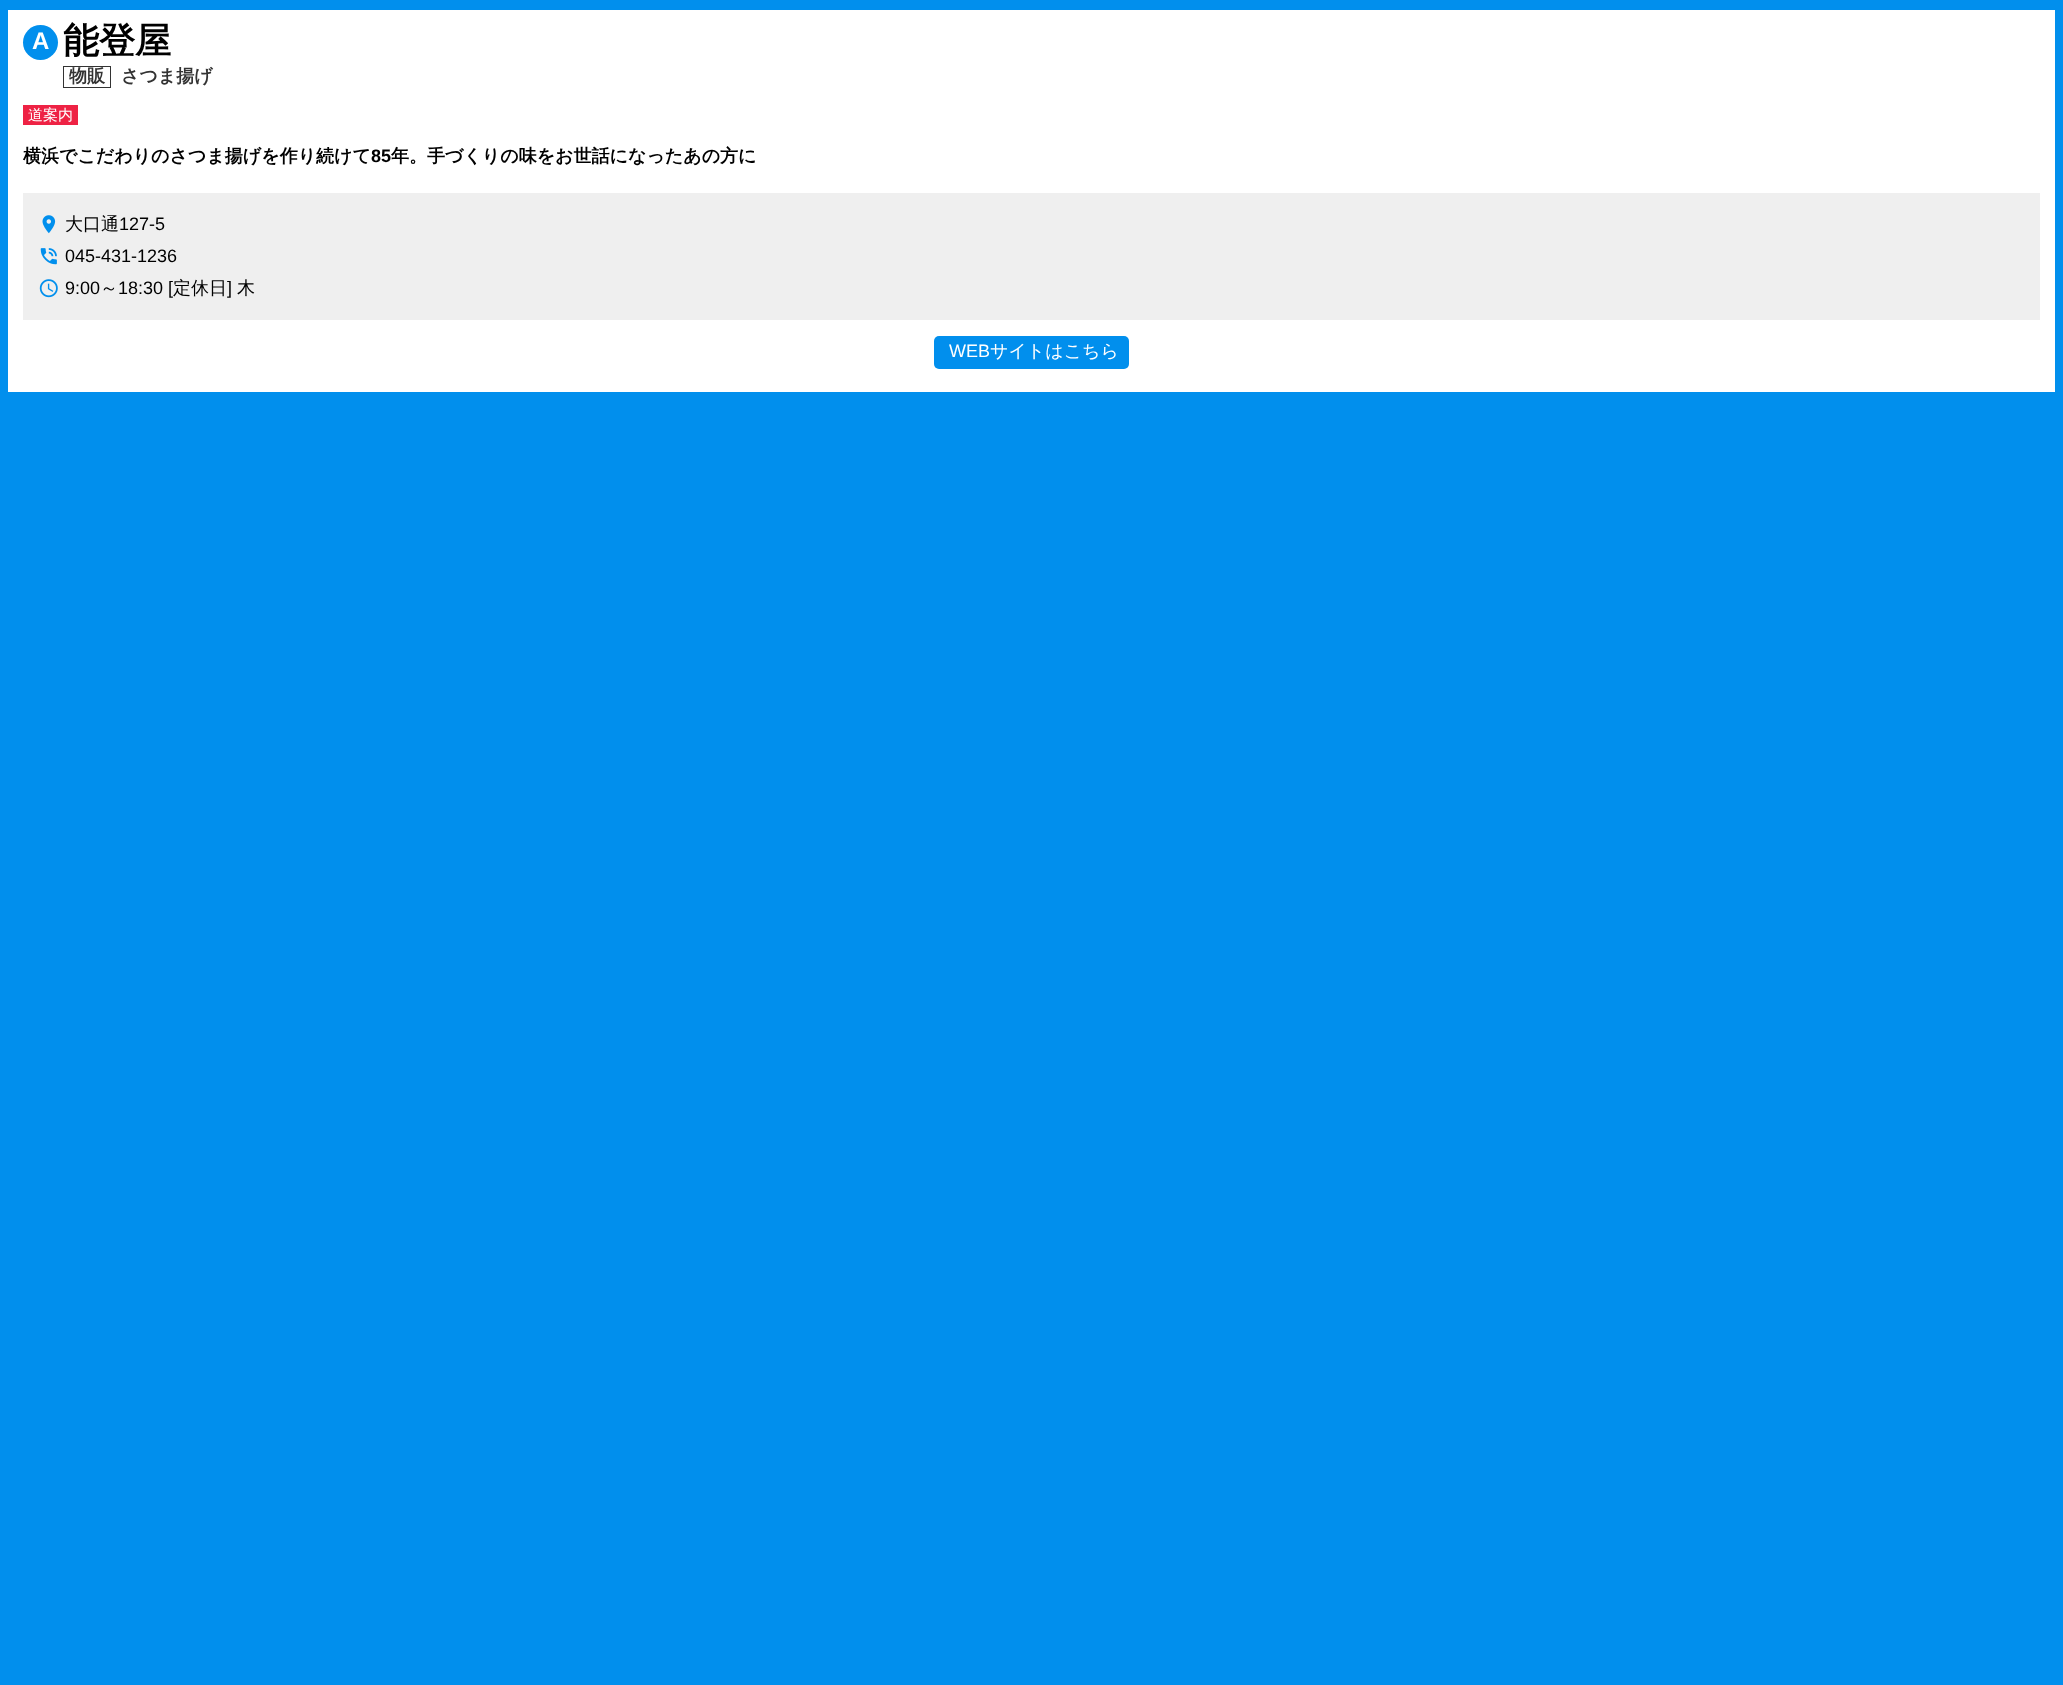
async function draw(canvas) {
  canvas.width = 2063
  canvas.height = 1685
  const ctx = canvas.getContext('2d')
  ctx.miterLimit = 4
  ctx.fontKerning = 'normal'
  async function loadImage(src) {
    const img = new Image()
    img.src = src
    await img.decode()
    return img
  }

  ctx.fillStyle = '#018fed'
  ctx.fillRect(0, 0, 2063, 1685)
  ctx.fillStyle = '#fff'
  ctx.fillRect(8, 10, 2047, 382)
  ctx.fillStyle = '#018fed'
  ctx.beginPath()
  ctx.arc(40.5, 42.5, 17.5, 0, 2 * Math.PI)
  ctx.fill()
  ctx.font = 'bold 24px Liberation Sans'
  ctx.fillStyle = '#fff'
  ctx.fillText('A', 32, 49)
  ctx.font = 'bold 36px WenQuanYi Zen Hei'
  ctx.fillStyle = '#000'
  ctx.fillText('能登屋', 63, 53)
  ctx.strokeStyle = '#333'
  ctx.strokeRect(63.5, 66.5, 47, 21)
  ctx.font = 'bold 18px WenQuanYi Zen Hei'
  ctx.fillStyle = '#333'
  ctx.fillText('物販', 69, 82)
  ctx.fillText('さつま揚げ', 121, 82)
  ctx.fillStyle = '#e24'
  ctx.fillRect(23, 105, 55, 20)
  ctx.font = '500 15px WenQuanYi Zen Hei'
  ctx.fillStyle = '#fff'
  ctx.fillText('道案内', 28, 120)
  ctx.font = 'bold 18px WenQuanYi Zen Hei'
  ctx.fillStyle = '#000'
  ctx.fillText('横浜でこだわりのさつま揚げを作り続けて', 23, 162)
  ctx.font = 'bold 18px Liberation Sans'
  ctx.fillText('85', 371, 162)
  ctx.font = 'bold 18px WenQuanYi Zen Hei'
  ctx.fillText('年。手づくりの味をお世話になったあの方に', 391, 162)
  ctx.fillStyle = '#efefef'
  ctx.fillRect(23, 193, 2017, 127)
  ctx.drawImage(await loadImage('image0.png'), 42, 215, 14, 19)
  ctx.font = '500 18px WenQuanYi Zen Hei'
  ctx.fillStyle = '#000'
  ctx.fillText('大口通', 65, 230)
  ctx.font = '18px Liberation Sans'
  ctx.fillText('127-5', 119, 230)
  ctx.drawImage(await loadImage('image1.png'), 40, 248, 17, 17)
  ctx.fillText('045-431-1236', 65, 262)
  ctx.drawImage(await loadImage('image2.png'), 39, 279, 19, 19)
  ctx.fillText('9:00', 65, 294)
  ctx.font = '500 18px WenQuanYi Zen Hei'
  ctx.fillText('～', 100, 294)
  ctx.font = '18px Liberation Sans'
  ctx.fillText('18:30 [', 118, 294)
  ctx.font = '500 18px WenQuanYi Zen Hei'
  ctx.fillText('定休日', 173, 294)
  ctx.font = '18px Liberation Sans'
  ctx.fillText(']', 227, 294)
  ctx.font = '500 18px WenQuanYi Zen Hei'
  ctx.fillText('木', 237, 294)
  ctx.fillStyle = '#018fed'
  ctx.beginPath()
  ctx.roundRect(934, 336, 195, 33, 5)
  ctx.fill()
  ctx.font = '18px Liberation Sans'
  ctx.fillStyle = '#fff'
  ctx.fillText('WEB', 949, 357)
  ctx.font = '500 18px WenQuanYi Zen Hei'
  ctx.fillText('サイトはこちら', 990, 357)
}

draw(document.querySelector('canvas'))
